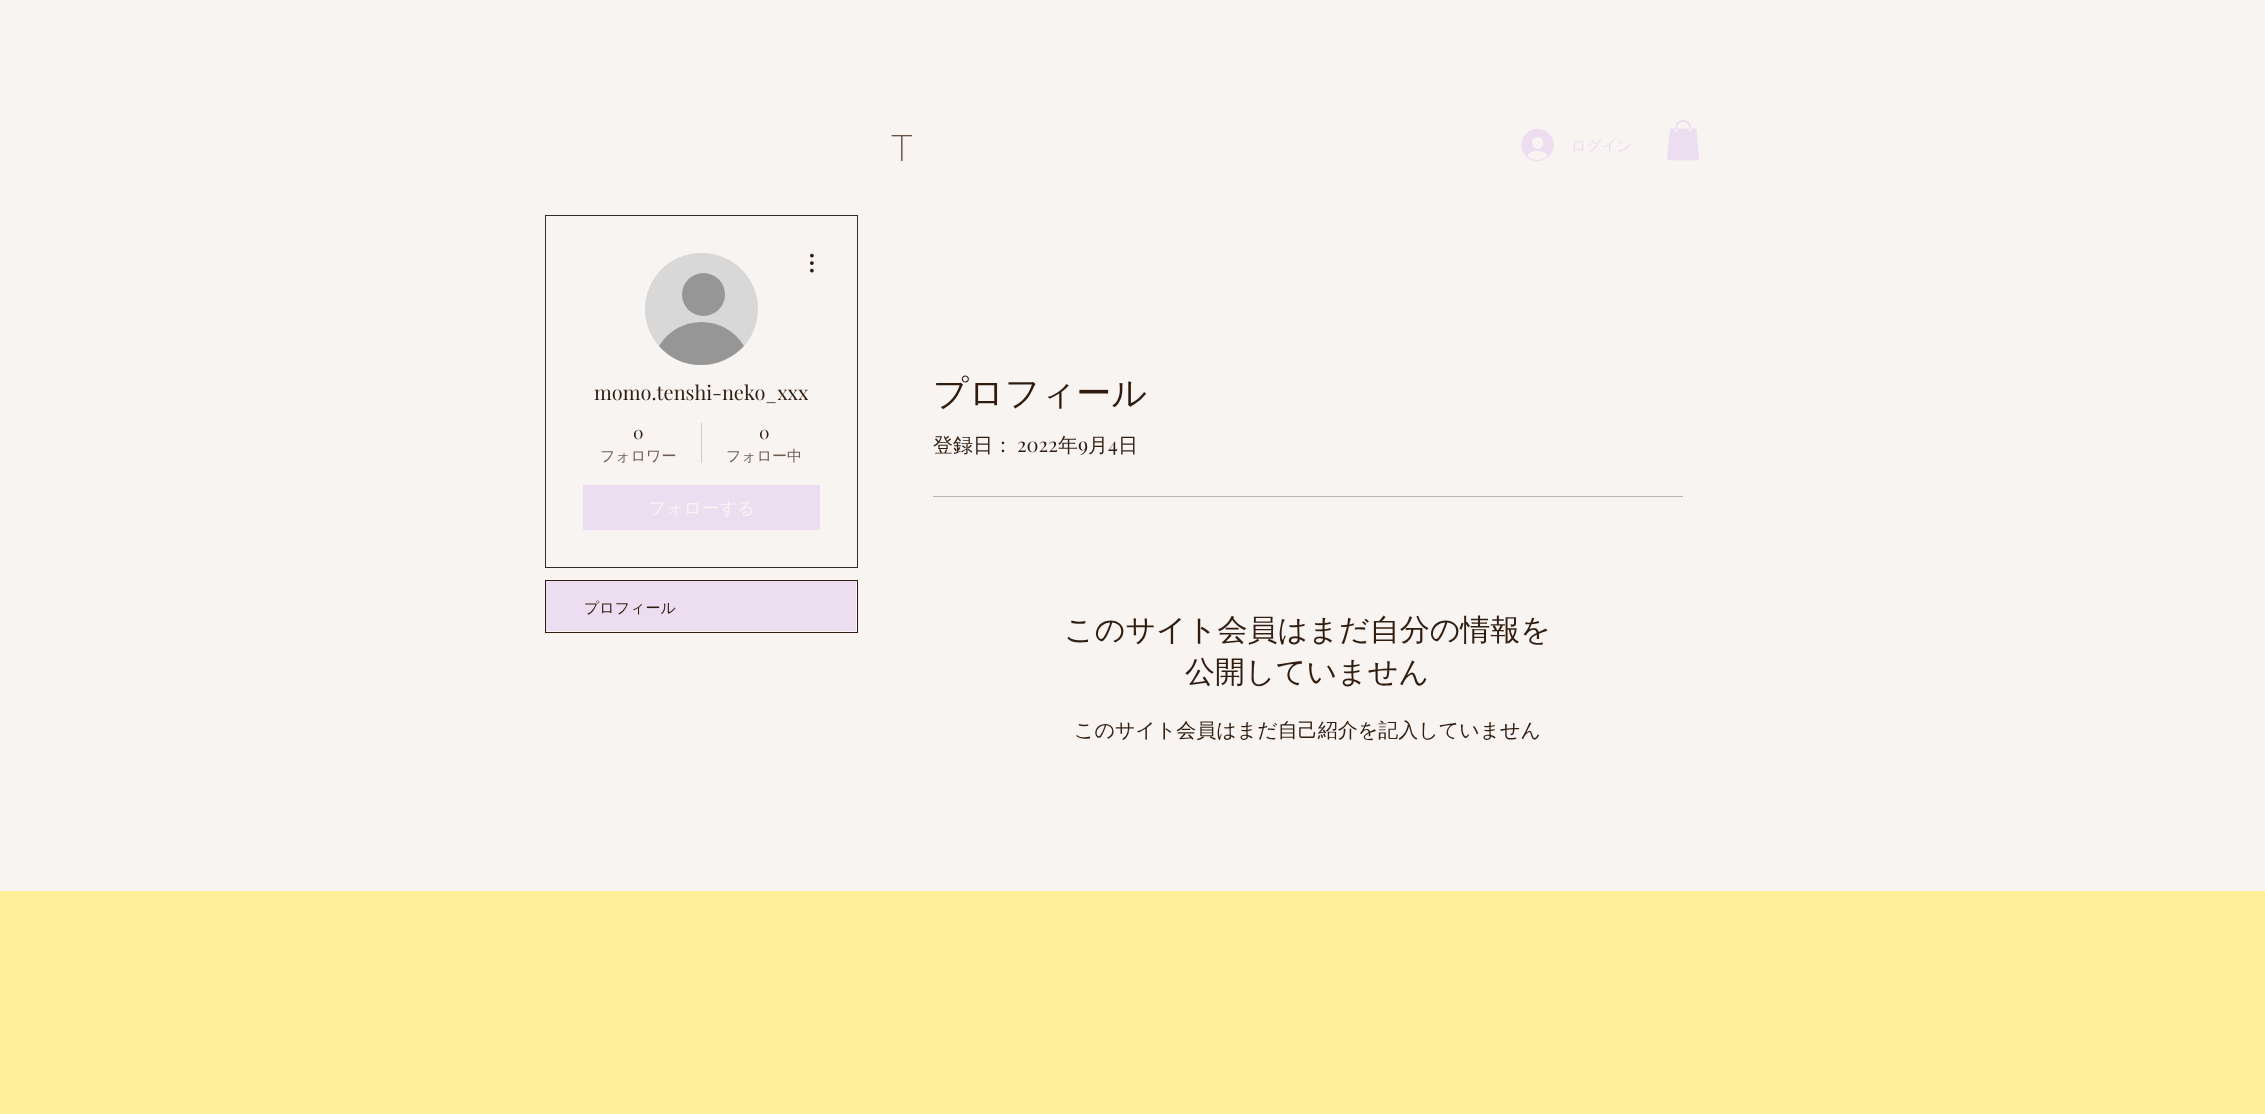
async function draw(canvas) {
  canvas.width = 2265
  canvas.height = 1114
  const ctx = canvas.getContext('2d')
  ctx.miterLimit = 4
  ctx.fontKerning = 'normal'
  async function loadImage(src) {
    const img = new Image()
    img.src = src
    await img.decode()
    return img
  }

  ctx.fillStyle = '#f8f4f1'
  ctx.fillRect(0, 0, 2265, 1114)
  ctx.letterSpacing = '4px'
  ctx.font = '200 39px Work Sans'
  ctx.fillStyle = '#36190b'
  ctx.fillText('T', 891, 161)
  ctx.drawImage(await loadImage('image0.png'), 1521, 129, 33, 32)
  ctx.letterSpacing = '0px'
  ctx.font = '500 15px WenQuanYi Zen Hei'
  ctx.fillStyle = '#edddf0'
  ctx.fillText('ログイン', 1571, 151)
  ctx.drawImage(await loadImage('image1.png'), 1667, 120, 33, 41)
  ctx.strokeStyle = '#2f2e2e'
  ctx.strokeRect(545.5, 215.5, 312, 352)
  ctx.fillStyle = '#d8d8d8'
  ctx.beginPath()
  ctx.roundRect(645, 253, 113, 112, 56)
  ctx.fill()
  ctx.fillStyle = '#969696'
  ctx.beginPath()
  ctx.arc(703.5, 294.5, 21.5, 0, 2 * Math.PI)
  ctx.fill()
  ctx.beginPath()
  ctx.moveTo(701, 365)
  ctx.bezierCurveTo(717, 365, 733, 358, 744, 346)
  ctx.bezierCurveTo(725, 314, 678, 314, 659, 346)
  ctx.bezierCurveTo(669, 358, 684, 365, 701, 365)
  ctx.closePath()
  ctx.fill()
  ctx.drawImage(await loadImage('image2.png'), 810, 253, 4, 20)
  ctx.font = '20px Playfair Display'
  ctx.fillStyle = '#301d10'
  ctx.fillText('momo.tenshi-neko_xxx', 594, 400)
  ctx.font = '17.5px Playfair Display'
  ctx.fillText('0', 633, 439)
  ctx.font = '500 15px WenQuanYi Zen Hei'
  ctx.fillStyle = '#6c5e54'
  ctx.fillText('フォロワー', 600, 461)
  ctx.fillStyle = '#d0c9c4'
  ctx.fillRect(701, 423, 1, 40)
  ctx.font = '17.5px Playfair Display'
  ctx.fillStyle = '#301d10'
  ctx.fillText('0', 759, 439)
  ctx.font = '500 15px WenQuanYi Zen Hei'
  ctx.fillStyle = '#6c5e54'
  ctx.fillText('フォロー中', 726, 461)
  ctx.fillStyle = '#edddf0'
  ctx.fillRect(583, 485, 237, 45)
  ctx.font = '500 17.5px WenQuanYi Zen Hei'
  ctx.fillStyle = '#f8f4f1'
  ctx.fillText('フォローする', 648, 514)
  ctx.strokeStyle = '#301d10'
  ctx.strokeRect(545.5, 580.5, 312, 52)
  ctx.fillStyle = '#edddf0'
  ctx.fillRect(546, 581, 310, 50)
  ctx.font = '500 15px WenQuanYi Zen Hei'
  ctx.fillStyle = '#301d10'
  ctx.fillText('プロフィール', 584, 613)
  ctx.font = '500 35px WenQuanYi Zen Hei'
  ctx.fillText('プロフィール', 933, 405)
  ctx.font = '500 20px WenQuanYi Zen Hei'
  ctx.fillText('登録日：', 933, 452)
  ctx.font = '20px Playfair Display'
  ctx.fillText('2022', 1017, 452)
  ctx.font = '500 20px WenQuanYi Zen Hei'
  ctx.fillText('年', 1058, 452)
  ctx.font = '20px Playfair Display'
  ctx.fillText('9', 1078, 452)
  ctx.font = '500 20px WenQuanYi Zen Hei'
  ctx.fillText('月', 1088, 452)
  ctx.font = '20px Playfair Display'
  ctx.fillText('4', 1108, 452)
  ctx.font = '500 20px WenQuanYi Zen Hei'
  ctx.fillText('日', 1118, 452)
  ctx.fillStyle = '#bcb4ae'
  ctx.fillRect(933, 496, 750, 1)
  ctx.font = '500 30px WenQuanYi Zen Hei'
  ctx.fillStyle = '#301d10'
  ctx.fillText('このサイト会員はまだ自分の情報を', 1064, 640)
  ctx.fillText('公開していません', 1185, 682)
  ctx.font = '500 20px WenQuanYi Zen Hei'
  ctx.fillText('このサイト会員はまだ自己紹介を記入していません', 1074, 737)
  ctx.fillStyle = '#ffef98'
  ctx.fillRect(0, 891, 2265, 223)
}

draw(document.querySelector('canvas'))
